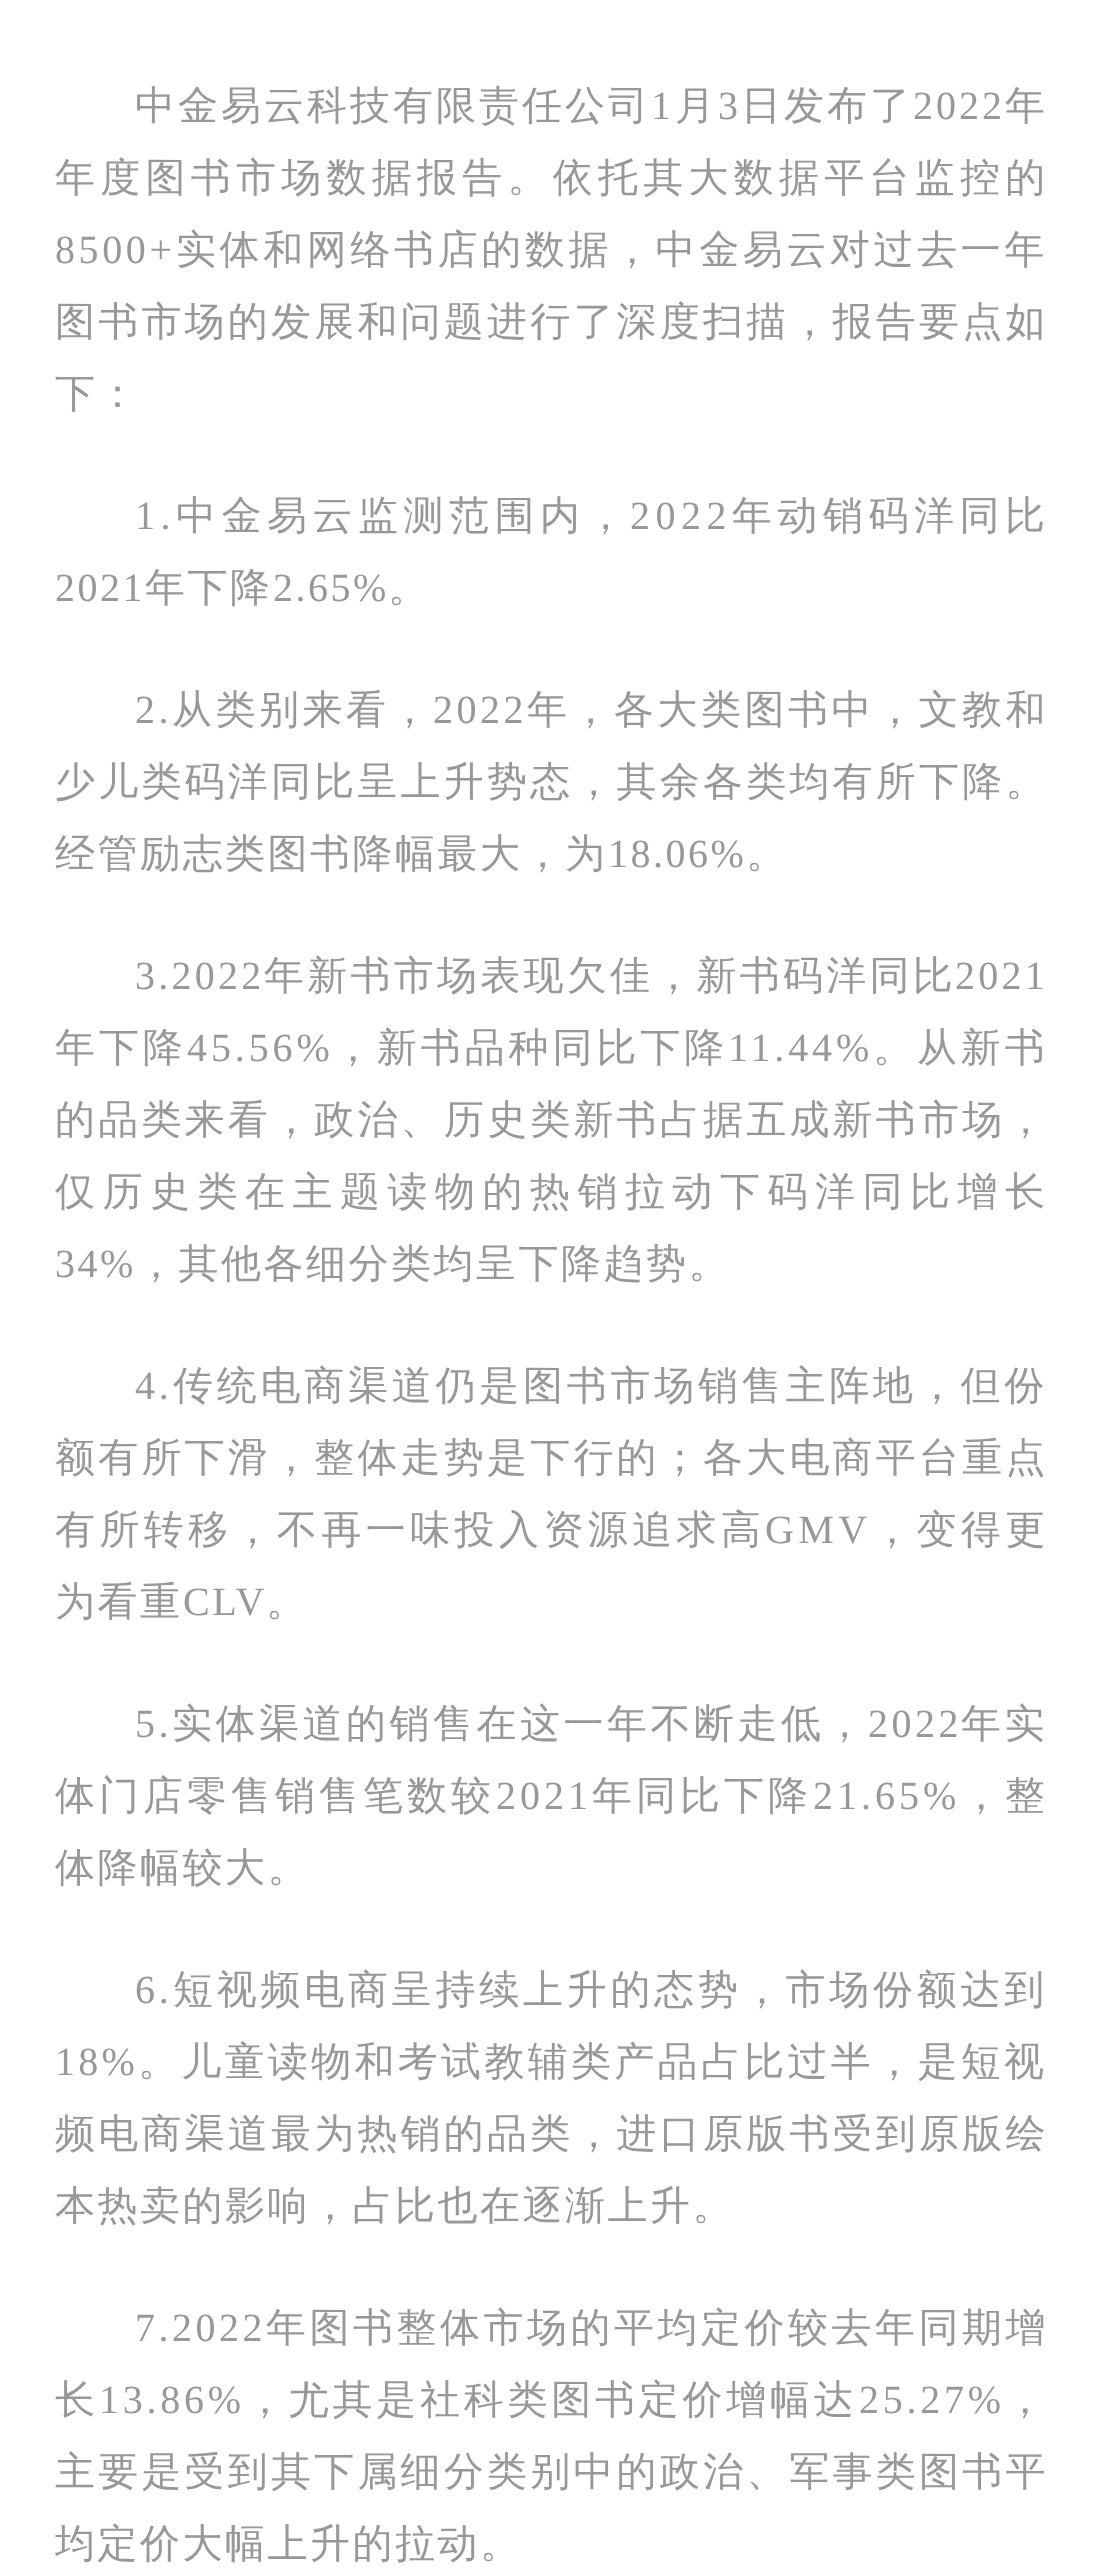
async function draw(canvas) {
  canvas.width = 1101
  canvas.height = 2568
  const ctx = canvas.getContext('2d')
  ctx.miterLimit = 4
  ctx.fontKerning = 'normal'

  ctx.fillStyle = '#fff'
  ctx.fillRect(0, 0, 1101, 2568)
  ctx.letterSpacing = '3px'
  ctx.font = '500 40px WenQuanYi Zen Hei'
  ctx.fillStyle = '#989898'
  ctx.fillText('中金易云科技有限责任公司', 135, 119)
  ctx.font = '40px Liberation Serif'
  ctx.fillText('1', 651, 119)
  ctx.font = '500 40px WenQuanYi Zen Hei'
  ctx.fillText('月', 675, 119)
  ctx.font = '40px Liberation Serif'
  ctx.fillText('3', 718, 119)
  ctx.font = '500 40px WenQuanYi Zen Hei'
  ctx.fillText('日发布了', 741, 119)
  ctx.font = '40px Liberation Serif'
  ctx.fillText('2022', 913, 119)
  ctx.font = '500 40px WenQuanYi Zen Hei'
  ctx.fillText('年', 1005, 119)
  ctx.letterSpacing = '5.25px'
  ctx.fillText('年度图书市场数据报告。依托其大数据平台监控的', 55, 191)
  ctx.letterSpacing = '3.6px'
  ctx.font = '40px Liberation Serif'
  ctx.fillText('8500+', 55, 263)
  ctx.font = '500 40px WenQuanYi Zen Hei'
  ctx.fillText('实体和网络书店的数据，中金易云对过去一年', 176, 263)
  ctx.letterSpacing = '3.2px'
  ctx.fillText('图书市场的发展和问题进行了深度扫描，报告要点如', 55, 335)
  ctx.letterSpacing = '2.5px'
  ctx.fillText('下：', 55, 407)
  ctx.letterSpacing = '5.5px'
  ctx.font = '40px Liberation Serif'
  ctx.fillText('1.', 135, 529)
  ctx.font = '500 40px WenQuanYi Zen Hei'
  ctx.fillText('中金易云监测范围内，', 176, 529)
  ctx.font = '40px Liberation Serif'
  ctx.fillText('2022', 630, 529)
  ctx.font = '500 40px WenQuanYi Zen Hei'
  ctx.fillText('年动销码洋同比', 732, 529)
  ctx.letterSpacing = '2.5px'
  ctx.font = '40px Liberation Serif'
  ctx.fillText('2021', 55, 601)
  ctx.font = '500 40px WenQuanYi Zen Hei'
  ctx.fillText('年下降', 145, 601)
  ctx.font = '40px Liberation Serif'
  ctx.fillText('2.65%', 273, 601)
  ctx.font = '500 40px WenQuanYi Zen Hei'
  ctx.fillText('。', 388, 601)
  ctx.letterSpacing = '3.5px'
  ctx.font = '40px Liberation Serif'
  ctx.fillText('2.', 135, 723)
  ctx.font = '500 40px WenQuanYi Zen Hei'
  ctx.fillText('从类别来看，', 172, 723)
  ctx.font = '40px Liberation Serif'
  ctx.fillText('2022', 433, 723)
  ctx.font = '500 40px WenQuanYi Zen Hei'
  ctx.fillText('年，各大类图书中，文教和', 527, 723)
  ctx.letterSpacing = '3.2px'
  ctx.fillText('少儿类码洋同比呈上升势态，其余各类均有所下降。', 55, 795)
  ctx.letterSpacing = '2.5px'
  ctx.fillText('经管励志类图书降幅最大，为', 55, 867)
  ctx.font = '40px Liberation Serif'
  ctx.fillText('18.06%', 608, 867)
  ctx.font = '500 40px WenQuanYi Zen Hei'
  ctx.fillText('。', 746, 867)
  ctx.letterSpacing = '3.25px'
  ctx.font = '40px Liberation Serif'
  ctx.fillText('3.2022', 135, 989)
  ctx.font = '500 40px WenQuanYi Zen Hei'
  ctx.fillText('年新书市场表现欠佳，新书码洋同比', 264, 989)
  ctx.font = '40px Liberation Serif'
  ctx.fillText('2021', 955, 989)
  ctx.letterSpacing = '3.9px'
  ctx.font = '500 40px WenQuanYi Zen Hei'
  ctx.fillText('年下降', 55, 1061)
  ctx.font = '40px Liberation Serif'
  ctx.fillText('45.56%', 187, 1061)
  ctx.font = '500 40px WenQuanYi Zen Hei'
  ctx.fillText('，新书品种同比下降', 333, 1061)
  ctx.font = '40px Liberation Serif'
  ctx.fillText('11.44%', 728, 1061)
  ctx.font = '500 40px WenQuanYi Zen Hei'
  ctx.fillText('。从新书', 873, 1061)
  ctx.letterSpacing = '3.2px'
  ctx.fillText('的品类来看，政治、历史类新书占据五成新书市场，', 55, 1133)
  ctx.letterSpacing = '7.5px'
  ctx.fillText('仅历史类在主题读物的热销拉动下码洋同比增长', 55, 1205)
  ctx.letterSpacing = '2.5px'
  ctx.font = '40px Liberation Serif'
  ctx.fillText('34%', 55, 1277)
  ctx.font = '500 40px WenQuanYi Zen Hei'
  ctx.fillText('，其他各细分类均呈下降趋势。', 136, 1277)
  ctx.letterSpacing = '3.75px'
  ctx.font = '40px Liberation Serif'
  ctx.fillText('4.', 135, 1399)
  ctx.font = '500 40px WenQuanYi Zen Hei'
  ctx.fillText('传统电商渠道仍是图书市场销售主阵地，但份', 173, 1399)
  ctx.letterSpacing = '3.2px'
  ctx.fillText('额有所下滑，整体走势是下行的；各大电商平台重点', 55, 1471)
  ctx.letterSpacing = '4.4px'
  ctx.fillText('有所转移，不再一味投入资源追求高', 55, 1543)
  ctx.font = '40px Liberation Serif'
  ctx.fillText('GMV', 765, 1543)
  ctx.font = '500 40px WenQuanYi Zen Hei'
  ctx.fillText('，变得更', 872, 1543)
  ctx.letterSpacing = '2.5px'
  ctx.fillText('为看重', 55, 1615)
  ctx.font = '40px Liberation Serif'
  ctx.fillText('CLV', 183, 1615)
  ctx.font = '500 40px WenQuanYi Zen Hei'
  ctx.fillText('。', 266, 1615)
  ctx.letterSpacing = '3.5px'
  ctx.font = '40px Liberation Serif'
  ctx.fillText('5.', 135, 1737)
  ctx.font = '500 40px WenQuanYi Zen Hei'
  ctx.fillText('实体渠道的销售在这一年不断走低，', 172, 1737)
  ctx.font = '40px Liberation Serif'
  ctx.fillText('2022', 868, 1737)
  ctx.font = '500 40px WenQuanYi Zen Hei'
  ctx.fillText('年实', 961, 1737)
  ctx.letterSpacing = '4px'
  ctx.fillText('体门店零售销售笔数较', 55, 1809)
  ctx.font = '40px Liberation Serif'
  ctx.fillText('2021', 496, 1809)
  ctx.font = '500 40px WenQuanYi Zen Hei'
  ctx.fillText('年同比下降', 592, 1809)
  ctx.font = '40px Liberation Serif'
  ctx.fillText('21.65%', 813, 1809)
  ctx.font = '500 40px WenQuanYi Zen Hei'
  ctx.fillText('，整', 961, 1809)
  ctx.letterSpacing = '2.5px'
  ctx.fillText('体降幅较大。', 55, 1881)
  ctx.letterSpacing = '3.75px'
  ctx.font = '40px Liberation Serif'
  ctx.fillText('6.', 135, 2003)
  ctx.font = '500 40px WenQuanYi Zen Hei'
  ctx.fillText('短视频电商呈持续上升的态势，市场份额达到', 173, 2003)
  ctx.letterSpacing = '3.3px'
  ctx.font = '40px Liberation Serif'
  ctx.fillText('18%', 55, 2075)
  ctx.font = '500 40px WenQuanYi Zen Hei'
  ctx.fillText('。儿童读物和考试教辅类产品占比过半，是短视', 138, 2075)
  ctx.letterSpacing = '3.2px'
  ctx.fillText('频电商渠道最为热销的品类，进口原版书受到原版绘', 55, 2147)
  ctx.letterSpacing = '2.5px'
  ctx.fillText('本热卖的影响，占比也在逐渐上升。', 55, 2219)
  ctx.letterSpacing = '3.5px'
  ctx.font = '40px Liberation Serif'
  ctx.fillText('7.2022', 135, 2341)
  ctx.font = '500 40px WenQuanYi Zen Hei'
  ctx.fillText('年图书整体市场的平均定价较去年同期增', 266, 2341)
  ctx.letterSpacing = '3.75px'
  ctx.fillText('长', 55, 2413)
  ctx.font = '40px Liberation Serif'
  ctx.fillText('13.86%', 99, 2413)
  ctx.font = '500 40px WenQuanYi Zen Hei'
  ctx.fillText('，尤其是社科类图书定价增幅达', 245, 2413)
  ctx.font = '40px Liberation Serif'
  ctx.fillText('25.27%', 859, 2413)
  ctx.font = '500 40px WenQuanYi Zen Hei'
  ctx.fillText('，', 1005, 2413)
  ctx.letterSpacing = '3.2px'
  ctx.fillText('主要是受到其下属细分类别中的政治、军事类图书平', 55, 2485)
  ctx.letterSpacing = '2.5px'
  ctx.fillText('均定价大幅上升的拉动。', 55, 2557)
}

draw(document.querySelector('canvas'))
